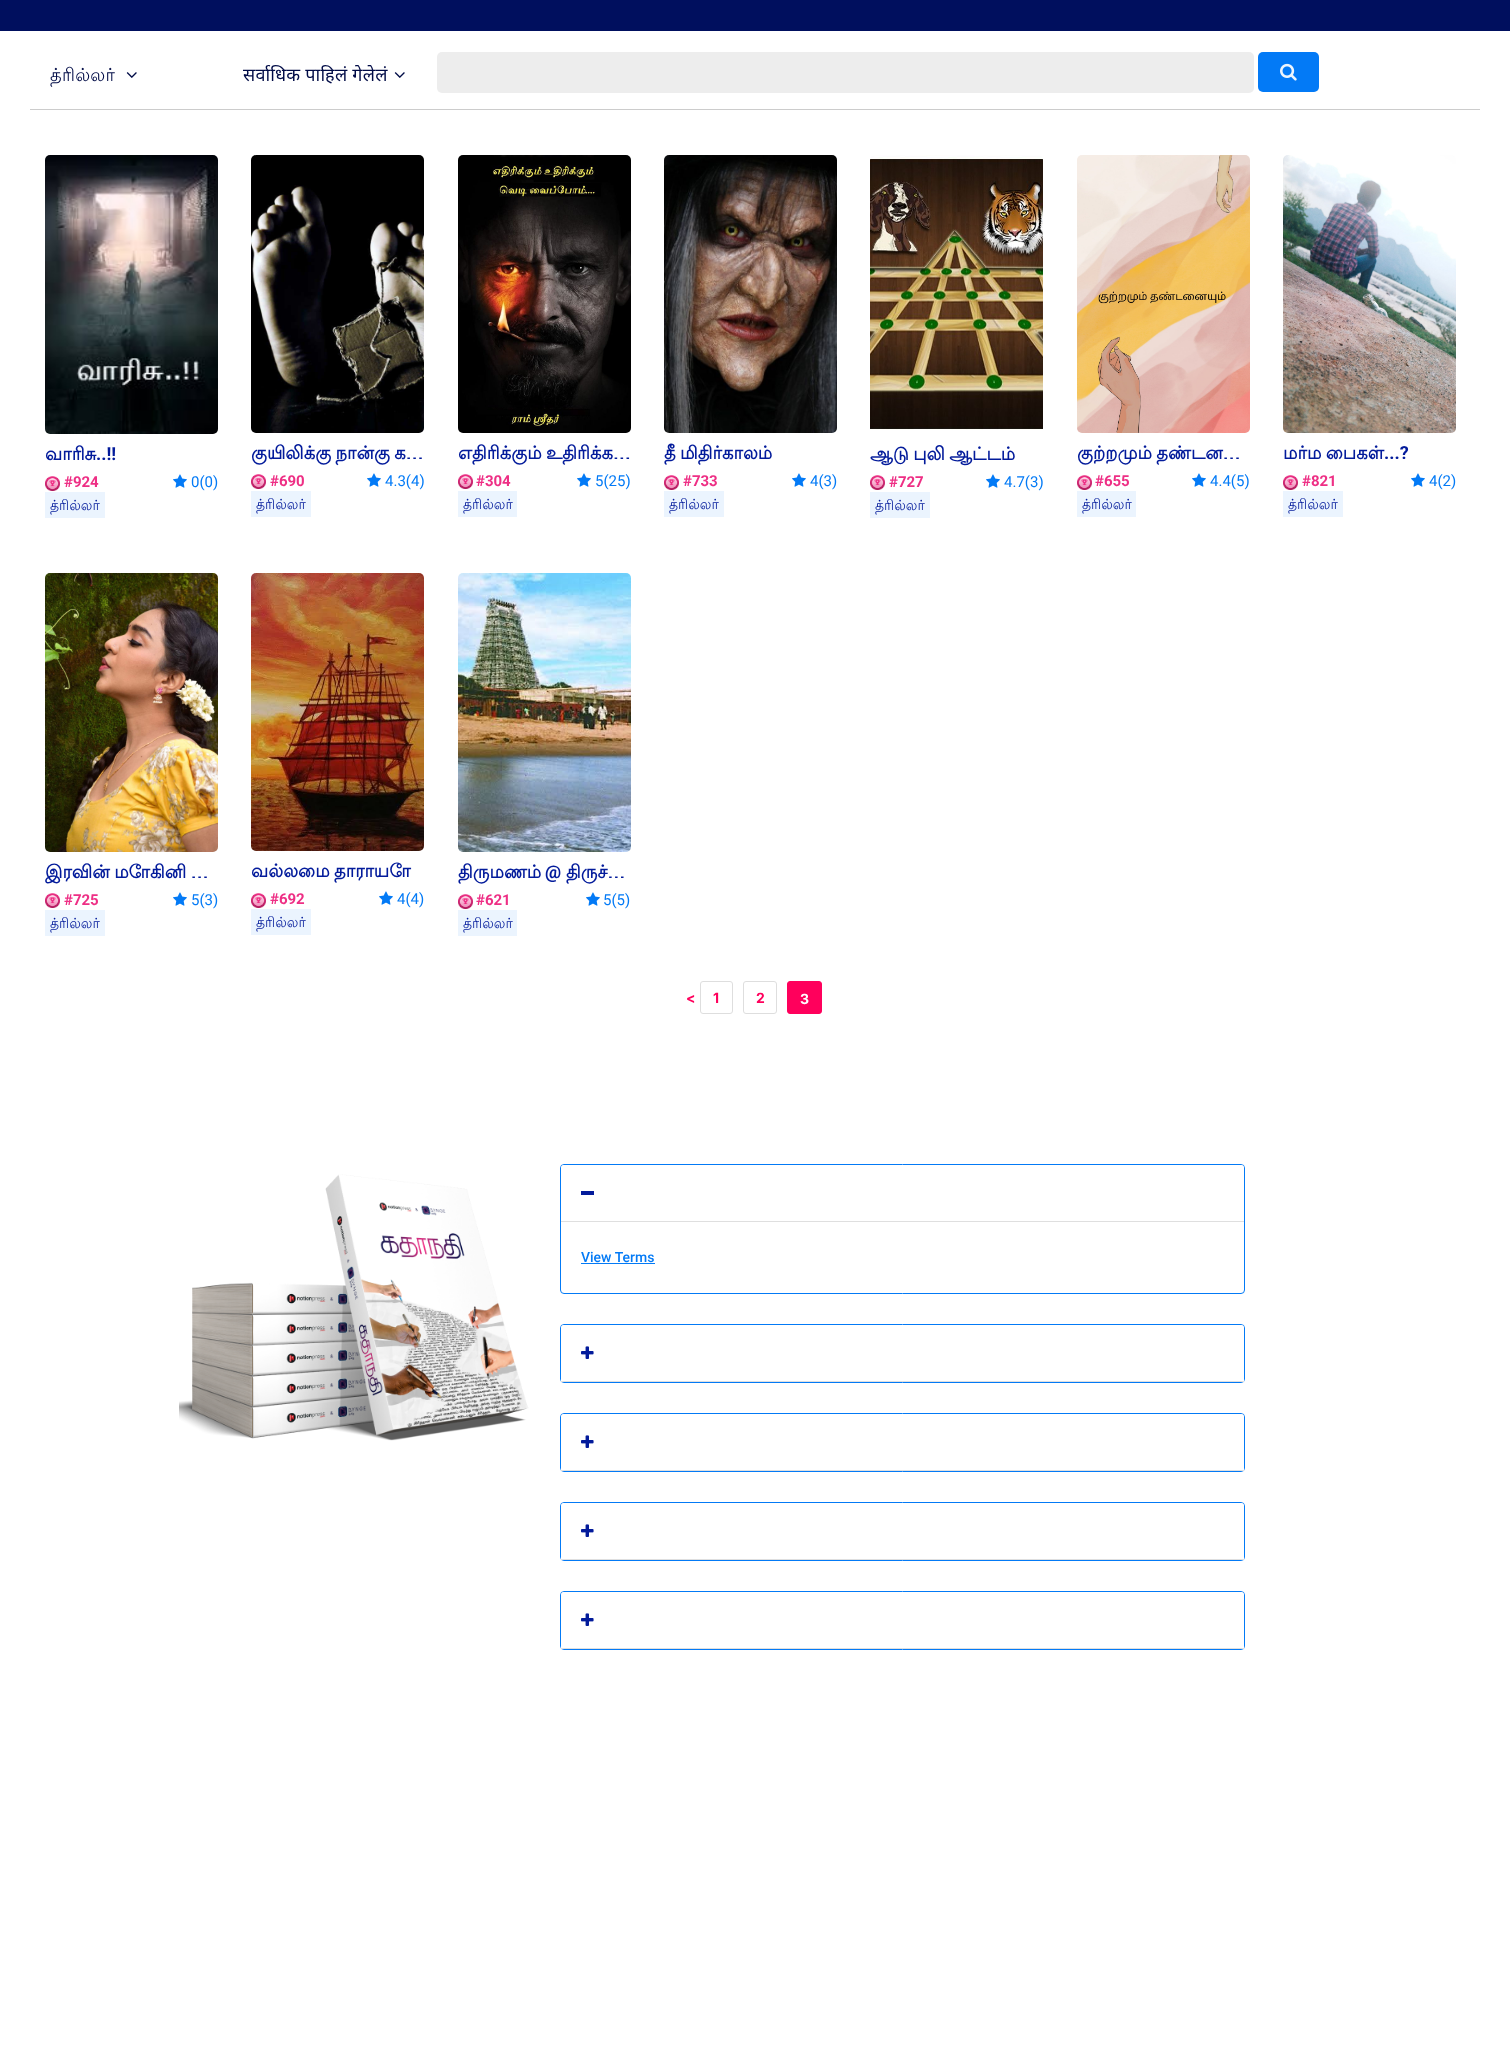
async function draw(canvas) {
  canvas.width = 1510
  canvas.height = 2066
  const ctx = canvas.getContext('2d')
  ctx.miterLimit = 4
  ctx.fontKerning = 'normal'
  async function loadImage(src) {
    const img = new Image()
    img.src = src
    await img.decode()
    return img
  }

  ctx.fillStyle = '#fff'
  ctx.fillRect(0, 0, 1510, 2066)
  ctx.fillStyle = '#000f5e'
  ctx.fillRect(0, 0, 1510, 31)
  ctx.fillStyle = '#ccc'
  ctx.fillRect(30, 109, 1450, 1)
  ctx.letterSpacing = '0.25px'
  ctx.font = '18px Lohit Tamil'
  ctx.fillStyle = '#000b46'
  ctx.fillText('த்ரில்லர்', 50, 81)
  ctx.drawImage(await loadImage('image0.png'), 126, 72, 11, 6)
  ctx.font = '18px Noto Sans'
  ctx.fillText('सर्वाधिक पाहिलं गेलेलं', 243, 81)
  ctx.drawImage(await loadImage('image0.png'), 394, 72, 11, 6)
  ctx.fillStyle = '#ededed'
  ctx.beginPath()
  ctx.roundRect(437, 52, 817, 41, 5)
  ctx.fill()
  ctx.fillStyle = '#037af6'
  ctx.beginPath()
  ctx.roundRect(1258, 52, 61, 40, 5)
  ctx.fill()
  ctx.drawImage(await loadImage('image1.png'), 1280, 63, 17, 18)
  ctx.drawImage(await loadImage('image2.png'), 45, 155, 173, 279)
  ctx.letterSpacing = '0px'
  ctx.font = 'bold 18px Lohit Tamil'
  ctx.fillStyle = '#031b9b'
  ctx.fillText('வாரிசு', 45, 460)
  ctx.font = 'bold 18px Roboto'
  ctx.fillText('..!!', 96, 460)
  ctx.drawImage(await loadImage('image3.png'), 45, 476, 15, 15)
  ctx.font = 'bold 15px Roboto'
  ctx.fillStyle = '#ee2f85'
  ctx.fillText('#924', 64, 487)
  ctx.drawImage(await loadImage('image4.png'), 173, 474, 14, 14)
  ctx.font = '15px Roboto'
  ctx.fillStyle = '#037af6'
  ctx.fillText('0(0)', 191, 487)
  ctx.fillStyle = '#ebf4fe'
  ctx.fillRect(45, 492, 60, 26)
  ctx.font = '14px Lohit Tamil'
  ctx.fillStyle = '#031b9b'
  ctx.fillText('த்ரில்லர்', 50, 510)
  ctx.drawImage(await loadImage('image5.png'), 251, 155, 173, 278)
  ctx.wordSpacing = '-1px'
  ctx.font = 'bold 18px Lohit Tamil'
  ctx.fillText('குயிலிக்கு நான்கு க…', 251, 459)
  ctx.drawImage(await loadImage('image3.png'), 251, 474, 15, 15)
  ctx.wordSpacing = '0px'
  ctx.font = 'bold 15px Roboto'
  ctx.fillStyle = '#ee2f85'
  ctx.fillText('#690', 270, 486)
  ctx.drawImage(await loadImage('image4.png'), 367, 473, 14, 14)
  ctx.font = '15px Roboto'
  ctx.fillStyle = '#037af6'
  ctx.fillText('4.3(4)', 385, 486)
  ctx.fillStyle = '#ebf4fe'
  ctx.fillRect(251, 491, 60, 26)
  ctx.font = '14px Lohit Tamil'
  ctx.fillStyle = '#031b9b'
  ctx.fillText('த்ரில்லர்', 256, 509)
  ctx.drawImage(await loadImage('image6.png'), 458, 155, 173, 278)
  ctx.wordSpacing = '-1px'
  ctx.font = 'bold 18px Lohit Tamil'
  ctx.fillText('எதிரிக்கும் உதிரிக்க…', 458, 459)
  ctx.drawImage(await loadImage('image3.png'), 458, 474, 15, 15)
  ctx.wordSpacing = '0px'
  ctx.font = 'bold 15px Roboto'
  ctx.fillStyle = '#ee2f85'
  ctx.fillText('#304', 476, 486)
  ctx.drawImage(await loadImage('image4.png'), 577, 473, 14, 14)
  ctx.font = '15px Roboto'
  ctx.fillStyle = '#037af6'
  ctx.fillText('5(25)', 595, 486)
  ctx.fillStyle = '#ebf4fe'
  ctx.fillRect(458, 491, 59, 26)
  ctx.font = '14px Lohit Tamil'
  ctx.fillStyle = '#031b9b'
  ctx.fillText('த்ரில்லர்', 463, 509)
  ctx.drawImage(await loadImage('image7.png'), 664, 155, 173, 278)
  ctx.wordSpacing = '-1px'
  ctx.font = 'bold 18px Lohit Tamil'
  ctx.fillText('தீ மிதிர்காலம்', 664, 459)
  ctx.drawImage(await loadImage('image3.png'), 664, 475, 15, 15)
  ctx.wordSpacing = '0px'
  ctx.font = 'bold 15px Roboto'
  ctx.fillStyle = '#ee2f85'
  ctx.fillText('#733', 683, 486)
  ctx.drawImage(await loadImage('image4.png'), 792, 473, 14, 14)
  ctx.font = '15px Roboto'
  ctx.fillStyle = '#037af6'
  ctx.fillText('4(3)', 810, 486)
  ctx.fillStyle = '#ebf4fe'
  ctx.fillRect(664, 491, 60, 26)
  ctx.font = '14px Lohit Tamil'
  ctx.fillStyle = '#031b9b'
  ctx.fillText('த்ரில்லர்', 669, 509)
  ctx.drawImage(await loadImage('image8.png'), 870, 155, 173, 275)
  ctx.wordSpacing = '-1px'
  ctx.font = 'bold 18px Lohit Tamil'
  ctx.fillText('ஆடு புலி ஆட்டம்', 870, 460)
  ctx.drawImage(await loadImage('image9.png'), 870, 475, 15, 15)
  ctx.wordSpacing = '0px'
  ctx.font = 'bold 15px Roboto'
  ctx.fillStyle = '#ee2f85'
  ctx.fillText('#727', 889, 487)
  ctx.drawImage(await loadImage('image4.png'), 986, 474, 14, 14)
  ctx.font = '15px Roboto'
  ctx.fillStyle = '#037af6'
  ctx.fillText('4.7(3)', 1004, 487)
  ctx.fillStyle = '#ebf4fe'
  ctx.fillRect(870, 492, 60, 26)
  ctx.font = '14px Lohit Tamil'
  ctx.fillStyle = '#031b9b'
  ctx.fillText('த்ரில்லர்', 875, 510)
  ctx.drawImage(await loadImage('image10.png'), 1077, 155, 173, 278)
  ctx.wordSpacing = '-1px'
  ctx.font = 'bold 18px Lohit Tamil'
  ctx.fillText('குற்றமும் தண்டன…', 1077, 459)
  ctx.drawImage(await loadImage('image9.png'), 1077, 475, 15, 15)
  ctx.wordSpacing = '0px'
  ctx.font = 'bold 15px Roboto'
  ctx.fillStyle = '#ee2f85'
  ctx.fillText('#655', 1095, 486)
  ctx.drawImage(await loadImage('image4.png'), 1192, 473, 14, 14)
  ctx.font = '15px Roboto'
  ctx.fillStyle = '#037af6'
  ctx.fillText('4.4(5)', 1210, 486)
  ctx.fillStyle = '#ebf4fe'
  ctx.fillRect(1077, 491, 59, 26)
  ctx.font = '14px Lohit Tamil'
  ctx.fillStyle = '#031b9b'
  ctx.fillText('த்ரில்லர்', 1082, 509)
  ctx.drawImage(await loadImage('image11.png'), 1283, 155, 173, 278)
  ctx.wordSpacing = '-1px'
  ctx.font = 'bold 18px Lohit Tamil'
  ctx.fillText('மர்ம பைகள்', 1283, 459)
  ctx.wordSpacing = '0px'
  ctx.font = 'bold 18px Roboto'
  ctx.fillText('...?', 1384, 459)
  ctx.drawImage(await loadImage('image3.png'), 1283, 475, 15, 15)
  ctx.font = 'bold 15px Roboto'
  ctx.fillStyle = '#ee2f85'
  ctx.fillText('#821', 1302, 486)
  ctx.drawImage(await loadImage('image4.png'), 1411, 473, 14, 14)
  ctx.font = '15px Roboto'
  ctx.fillStyle = '#037af6'
  ctx.fillText('4(2)', 1429, 486)
  ctx.fillStyle = '#ebf4fe'
  ctx.fillRect(1283, 491, 60, 26)
  ctx.font = '14px Lohit Tamil'
  ctx.fillStyle = '#031b9b'
  ctx.fillText('த்ரில்லர்', 1288, 509)
  ctx.drawImage(await loadImage('image12.png'), 45, 573, 173, 279)
  ctx.wordSpacing = '-1px'
  ctx.font = 'bold 18px Lohit Tamil'
  ctx.fillText('இரவின் மோகினி …', 45, 878)
  ctx.drawImage(await loadImage('image3.png'), 45, 893, 15, 15)
  ctx.wordSpacing = '0px'
  ctx.font = 'bold 15px Roboto'
  ctx.fillStyle = '#ee2f85'
  ctx.fillText('#725', 64, 905)
  ctx.drawImage(await loadImage('image4.png'), 173, 892, 14, 14)
  ctx.font = '15px Roboto'
  ctx.fillStyle = '#037af6'
  ctx.fillText('5(3)', 191, 905)
  ctx.fillStyle = '#ebf4fe'
  ctx.fillRect(45, 910, 60, 26)
  ctx.font = '14px Lohit Tamil'
  ctx.fillStyle = '#031b9b'
  ctx.fillText('த்ரில்லர்', 50, 928)
  ctx.drawImage(await loadImage('image13.png'), 251, 573, 173, 278)
  ctx.wordSpacing = '-1px'
  ctx.font = 'bold 18px Lohit Tamil'
  ctx.fillText('வல்லமை தாராயோ', 251, 877)
  ctx.drawImage(await loadImage('image3.png'), 251, 893, 15, 15)
  ctx.wordSpacing = '0px'
  ctx.font = 'bold 15px Roboto'
  ctx.fillStyle = '#ee2f85'
  ctx.fillText('#692', 270, 904)
  ctx.drawImage(await loadImage('image4.png'), 379, 891, 14, 14)
  ctx.font = '15px Roboto'
  ctx.fillStyle = '#037af6'
  ctx.fillText('4(4)', 397, 904)
  ctx.fillStyle = '#ebf4fe'
  ctx.fillRect(251, 909, 60, 26)
  ctx.font = '14px Lohit Tamil'
  ctx.fillStyle = '#031b9b'
  ctx.fillText('த்ரில்லர்', 256, 927)
  ctx.drawImage(await loadImage('image14.png'), 458, 573, 173, 279)
  ctx.font = 'bold 18px Lohit Tamil'
  ctx.fillText('திருமணம்', 458, 878)
  ctx.font = 'bold 18px Roboto'
  ctx.fillText('@', 545, 878)
  ctx.font = 'bold 18px Lohit Tamil'
  ctx.fillText('திருச்…', 566, 878)
  ctx.drawImage(await loadImage('image3.png'), 458, 894, 15, 15)
  ctx.font = 'bold 15px Roboto'
  ctx.fillStyle = '#ee2f85'
  ctx.fillText('#621', 476, 905)
  ctx.drawImage(await loadImage('image4.png'), 586, 892, 14, 14)
  ctx.font = '15px Roboto'
  ctx.fillStyle = '#037af6'
  ctx.fillText('5(5)', 603, 905)
  ctx.fillStyle = '#ebf4fe'
  ctx.fillRect(458, 910, 59, 26)
  ctx.font = '14px Lohit Tamil'
  ctx.fillStyle = '#031b9b'
  ctx.fillText('த்ரில்லர்', 463, 928)
  ctx.font = 'bold 14px Inter'
  ctx.fillStyle = '#ff005c'
  ctx.fillText('<', 686, 1003)
  ctx.beginPath()
  ctx.roundRect(700.5, 981.5, 32, 32, 2.5)
  ctx.strokeStyle = '#dedede'
  ctx.stroke()
  ctx.fillText('1', 713, 1003)
  ctx.beginPath()
  ctx.roundRect(743.5, 981.5, 33, 32, 2.5)
  ctx.stroke()
  ctx.fillText('2', 756, 1003)
  ctx.beginPath()
  ctx.roundRect(787.5, 981.5, 34, 32, 2.5)
  ctx.fill()
  ctx.strokeStyle = '#ff005c'
  ctx.stroke()
  ctx.fillStyle = '#fff'
  ctx.fillText('3', 800, 1004)
  ctx.drawImage(await loadImage('image15.png'), 179, 1174, 350, 267)
  ctx.beginPath()
  ctx.roundRect(560.5, 1164.5, 684, 129, 3.5)
  ctx.strokeStyle = '#037af6'
  ctx.stroke()
  ctx.beginPath()
  ctx.roundRect(561, 1165, 683, 57, [3, 3, 0, 0])
  ctx.fill()
  ctx.fillStyle = '#dfdfdf'
  ctx.fillRect(561, 1221, 683, 1)
  ctx.fillStyle = '#031b9b'
  ctx.fillRect(581, 1191, 13, 4)
  ctx.font = '500 14px Roboto'
  ctx.fillStyle = '#037af6'
  ctx.fillText('View Terms', 581, 1262)
  ctx.fillRect(581, 1263, 74, 1)
  ctx.beginPath()
  ctx.roundRect(560.5, 1324.5, 684, 58, 3.5)
  ctx.stroke()
  ctx.fillStyle = '#fff'
  ctx.beginPath()
  ctx.roundRect(561, 1325, 683, 57, [3, 3, 0, 0])
  ctx.fill()
  ctx.fillStyle = '#dfdfdf'
  ctx.fillRect(561, 1381, 683, 1)
  ctx.drawImage(await loadImage('image16.png'), 581, 1346, 13, 13)
  ctx.beginPath()
  ctx.roundRect(560.5, 1413.5, 684, 58, 3.5)
  ctx.stroke()
  ctx.fillStyle = '#fff'
  ctx.beginPath()
  ctx.roundRect(561, 1414, 683, 57, [3, 3, 0, 0])
  ctx.fill()
  ctx.fillStyle = '#dfdfdf'
  ctx.fillRect(561, 1470, 683, 1)
  ctx.drawImage(await loadImage('image16.png'), 581, 1435, 13, 13)
  ctx.beginPath()
  ctx.roundRect(560.5, 1502.5, 684, 58, 3.5)
  ctx.stroke()
  ctx.fillStyle = '#fff'
  ctx.beginPath()
  ctx.roundRect(561, 1503, 683, 57, [3, 3, 0, 0])
  ctx.fill()
  ctx.fillStyle = '#dfdfdf'
  ctx.fillRect(561, 1559, 683, 1)
  ctx.drawImage(await loadImage('image16.png'), 581, 1524, 13, 13)
  ctx.beginPath()
  ctx.roundRect(560.5, 1591.5, 684, 58, 3.5)
  ctx.stroke()
  ctx.fillStyle = '#fff'
  ctx.beginPath()
  ctx.roundRect(561, 1592, 683, 57, [3, 3, 0, 0])
  ctx.fill()
  ctx.fillStyle = '#dfdfdf'
  ctx.fillRect(561, 1648, 683, 1)
  ctx.drawImage(await loadImage('image16.png'), 581, 1613, 13, 13)
}

draw(document.querySelector('canvas'))
